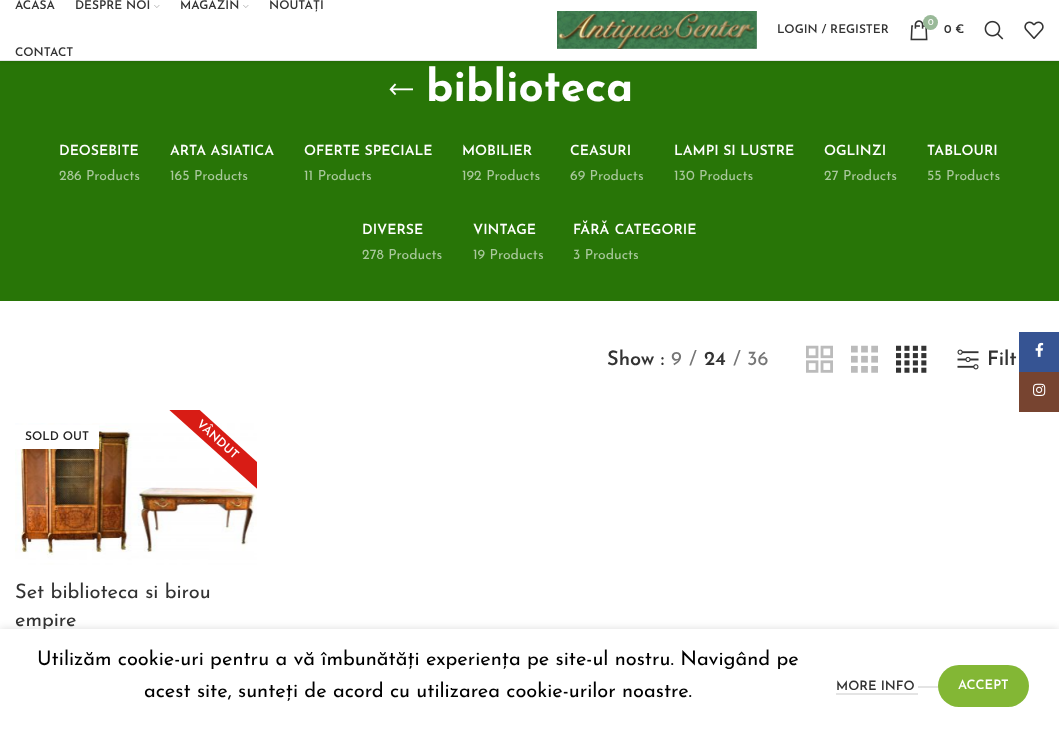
async function draw(canvas) {
  canvas.width = 1059
  canvas.height = 743
  const ctx = canvas.getContext('2d')
  ctx.miterLimit = 4
  ctx.fontKerning = 'normal'
  async function loadImage(src) {
    const img = new Image()
    img.src = src
    await img.decode()
    return img
  }

  ctx.fillStyle = '#fff'
  ctx.fillRect(0, 0, 1059, 743)
  ctx.fillStyle = '#287507'
  ctx.fillRect(0, 61, 1059, 240)
  ctx.fillStyle = '#0000001a'
  ctx.filter = 'blur(1.5px)'
  ctx.beginPath()
  ctx.rect(0, 1, 1059, 61)
  ctx.fill()
  ctx.filter = 'none'
  ctx.fillStyle = '#fff'
  ctx.fillRect(0, 0, 1059, 60)
  ctx.fillStyle = '#e6e6e6'
  ctx.fillRect(0, 60, 1059, 1)
  ctx.font = '600 12px Josefin Sans'
  ctx.fillStyle = '#333'
  ctx.fillText('ACASA', 15, 9)
  ctx.fillText('DESPRE NOI', 75, 9)
  ctx.drawImage(await loadImage('image0.png'), 154, 5, 6, 3)
  ctx.fillText('MAGAZIN', 180, 9)
  ctx.drawImage(await loadImage('image0.png'), 243, 5, 6, 3)
  ctx.fillText('NOUTĂȚI', 269, 9)
  ctx.fillText('CONTACT', 15, 56)
  ctx.drawImage(await loadImage('image1.png'), 557, 11, 200, 38)
  ctx.fillText('LOGIN / REGISTER', 777, 33)
  ctx.drawImage(await loadImage('image2.png'), 910, 20, 18, 21)
  ctx.fillStyle = '#99b998'
  ctx.beginPath()
  ctx.arc(930.5, 22.5, 7.5, 0, 2 * Math.PI)
  ctx.fill()
  ctx.font = '9px Josefin Sans'
  ctx.fillStyle = '#fff'
  ctx.fillText('0', 928, 25)
  ctx.font = '600 12px Josefin Sans'
  ctx.fillStyle = '#333'
  ctx.fillText('0 €', 944, 33)
  ctx.drawImage(await loadImage('image3.png'), 984, 20, 20, 20)
  ctx.drawImage(await loadImage('image4.png'), 1024, 21, 20, 18)
  ctx.drawImage(await loadImage('image5.png'), 389, 83, 24, 13)
  ctx.font = 'bold 44px Josefin Sans'
  ctx.fillStyle = '#fff'
  ctx.fillText('biblioteca', 426, 101)
  ctx.font = '600 14px Josefin Sans'
  ctx.fillText('DEOSEBITE', 59, 155)
  ctx.font = '14px Josefin Sans'
  ctx.fillStyle = '#a9c89c'
  ctx.fillText('286 Products', 59, 180)
  ctx.font = '600 14px Josefin Sans'
  ctx.fillStyle = '#fff'
  ctx.fillText('ARTA ASIATICA', 170, 155)
  ctx.font = '14px Josefin Sans'
  ctx.fillStyle = '#a9c89c'
  ctx.fillText('165 Products', 170, 180)
  ctx.font = '600 14px Josefin Sans'
  ctx.fillStyle = '#fff'
  ctx.fillText('OFERTE SPECIALE', 304, 155)
  ctx.font = '14px Josefin Sans'
  ctx.fillStyle = '#a9c89c'
  ctx.fillText('11 Products', 304, 180)
  ctx.font = '600 14px Josefin Sans'
  ctx.fillStyle = '#fff'
  ctx.fillText('MOBILIER', 462, 155)
  ctx.font = '14px Josefin Sans'
  ctx.fillStyle = '#a9c89c'
  ctx.fillText('192 Products', 462, 180)
  ctx.font = '600 14px Josefin Sans'
  ctx.fillStyle = '#fff'
  ctx.fillText('CEASURI', 570, 155)
  ctx.font = '14px Josefin Sans'
  ctx.fillStyle = '#a9c89c'
  ctx.fillText('69 Products', 570, 180)
  ctx.font = '600 14px Josefin Sans'
  ctx.fillStyle = '#fff'
  ctx.fillText('LAMPI SI LUSTRE', 674, 155)
  ctx.font = '14px Josefin Sans'
  ctx.fillStyle = '#a9c89c'
  ctx.fillText('130 Products', 674, 180)
  ctx.font = '600 14px Josefin Sans'
  ctx.fillStyle = '#fff'
  ctx.fillText('OGLINZI', 824, 155)
  ctx.font = '14px Josefin Sans'
  ctx.fillStyle = '#a9c89c'
  ctx.fillText('27 Products', 824, 180)
  ctx.font = '600 14px Josefin Sans'
  ctx.fillStyle = '#fff'
  ctx.fillText('TABLOURI', 927, 155)
  ctx.font = '14px Josefin Sans'
  ctx.fillStyle = '#a9c89c'
  ctx.fillText('55 Products', 927, 180)
  ctx.font = '600 14px Josefin Sans'
  ctx.fillStyle = '#fff'
  ctx.fillText('DIVERSE', 362, 234)
  ctx.font = '14px Josefin Sans'
  ctx.fillStyle = '#a9c89c'
  ctx.fillText('278 Products', 362, 259)
  ctx.font = '600 14px Josefin Sans'
  ctx.fillStyle = '#fff'
  ctx.fillText('VINTAGE', 473, 234)
  ctx.font = '14px Josefin Sans'
  ctx.fillStyle = '#a9c89c'
  ctx.fillText('19 Products', 473, 259)
  ctx.wordSpacing = '1px'
  ctx.font = '600 14px Josefin Sans'
  ctx.fillStyle = '#fff'
  ctx.fillText('FĂRĂ CATEGORIE', 573, 234)
  ctx.wordSpacing = '0px'
  ctx.font = '14px Josefin Sans'
  ctx.fillStyle = '#a9c89c'
  ctx.fillText('3 Products', 573, 259)
  ctx.font = '600 20px Josefin Sans'
  ctx.fillStyle = '#333'
  ctx.fillText('Show :', 607, 365)
  ctx.font = '20px Josefin Sans'
  ctx.fillStyle = '#767676'
  ctx.fillText('9', 671, 365)
  ctx.fillText('/', 689, 365)
  ctx.font = '600 20px Josefin Sans'
  ctx.fillStyle = '#333'
  ctx.fillText('24', 704, 365)
  ctx.font = '20px Josefin Sans'
  ctx.fillStyle = '#767676'
  ctx.fillText('/', 733, 365)
  ctx.fillText('36', 747, 365)
  ctx.drawImage(await loadImage('image6.png'), 806, 345, 27, 28)
  ctx.drawImage(await loadImage('image7.png'), 851, 345, 27, 28)
  ctx.drawImage(await loadImage('image8.png'), 896, 345, 31, 28)
  ctx.drawImage(await loadImage('image9.png'), 957, 349, 22, 21)
  ctx.font = '600 20px Josefin Sans'
  ctx.fillStyle = '#333'
  ctx.fillText('Filt', 987, 365)
  ctx.drawImage(await loadImage('image10.png'), 15, 423, 242, 142)
  ctx.save()
  ctx.beginPath()
  ctx.rect(15, 410, 242, 161)
  ctx.clip()
  ctx.fillStyle = '#d81c15'
  ctx.beginPath()
  ctx.moveTo(150, 365)
  ctx.lineTo(298, 499)
  ctx.lineTo(285, 514)
  ctx.lineTo(136, 380)
  ctx.closePath()
  ctx.fill()
  ctx.restore()
  ctx.font = '600 12px Josefin Sans'
  ctx.fillStyle = '#fff'
  ctx.save()
  ctx.translate(196, 425)
  ctx.rotate(42 * Math.PI / 180)
  ctx.fillText('VÂNDUT', 0, 0)
  ctx.restore()
  ctx.fillRect(15, 425, 84, 24)
  ctx.fillStyle = '#242424'
  ctx.fillText('SOLD OUT', 25, 440)
  ctx.font = '20px Josefin Sans'
  ctx.fillStyle = '#333'
  ctx.fillText('Set biblioteca si birou', 15, 598)
  ctx.fillText('empire', 15, 626)
  ctx.fillStyle = '#365493'
  ctx.fillRect(1019, 332, 40, 40)
  ctx.drawImage(await loadImage('image11.png'), 1035, 342, 9, 15)
  ctx.fillStyle = '#774430'
  ctx.fillRect(1019, 372, 40, 40)
  ctx.drawImage(await loadImage('image12.png'), 1033, 383, 13, 13)
  ctx.fillStyle = '#00000024'
  ctx.filter = 'blur(4.5px)'
  ctx.beginPath()
  ctx.rect(0, 629, 1059, 114)
  ctx.fill()
  ctx.filter = 'none'
  ctx.fillStyle = '#fff'
  ctx.fillRect(0, 629, 1059, 114)
  ctx.fillStyle = '#000'
  ctx.fillText('Utilizăm cookie-uri pentru a vă îmbunătăți experiența pe site-ul nostru. Navigând pe', 37, 665)
  ctx.fillText('acest site, sunteți de acord cu utilizarea cookie-urilor noastre.', 144, 697)
  ctx.font = '600 13px Josefin Sans'
  ctx.fillStyle = '#333'
  ctx.fillText('MORE INFO', 836, 690)
  ctx.fillStyle = '#e4e4e4'
  ctx.fillRect(836, 693, 82, 2)
  ctx.fillRect(918, 686, 21, 2)
  ctx.fillStyle = '#83b735'
  ctx.beginPath()
  ctx.roundRect(938, 665, 91, 42, 21)
  ctx.fill()
  ctx.fillStyle = '#fff'
  ctx.fillText('ACCEPT', 958, 689)
}

draw(document.querySelector('canvas'))
